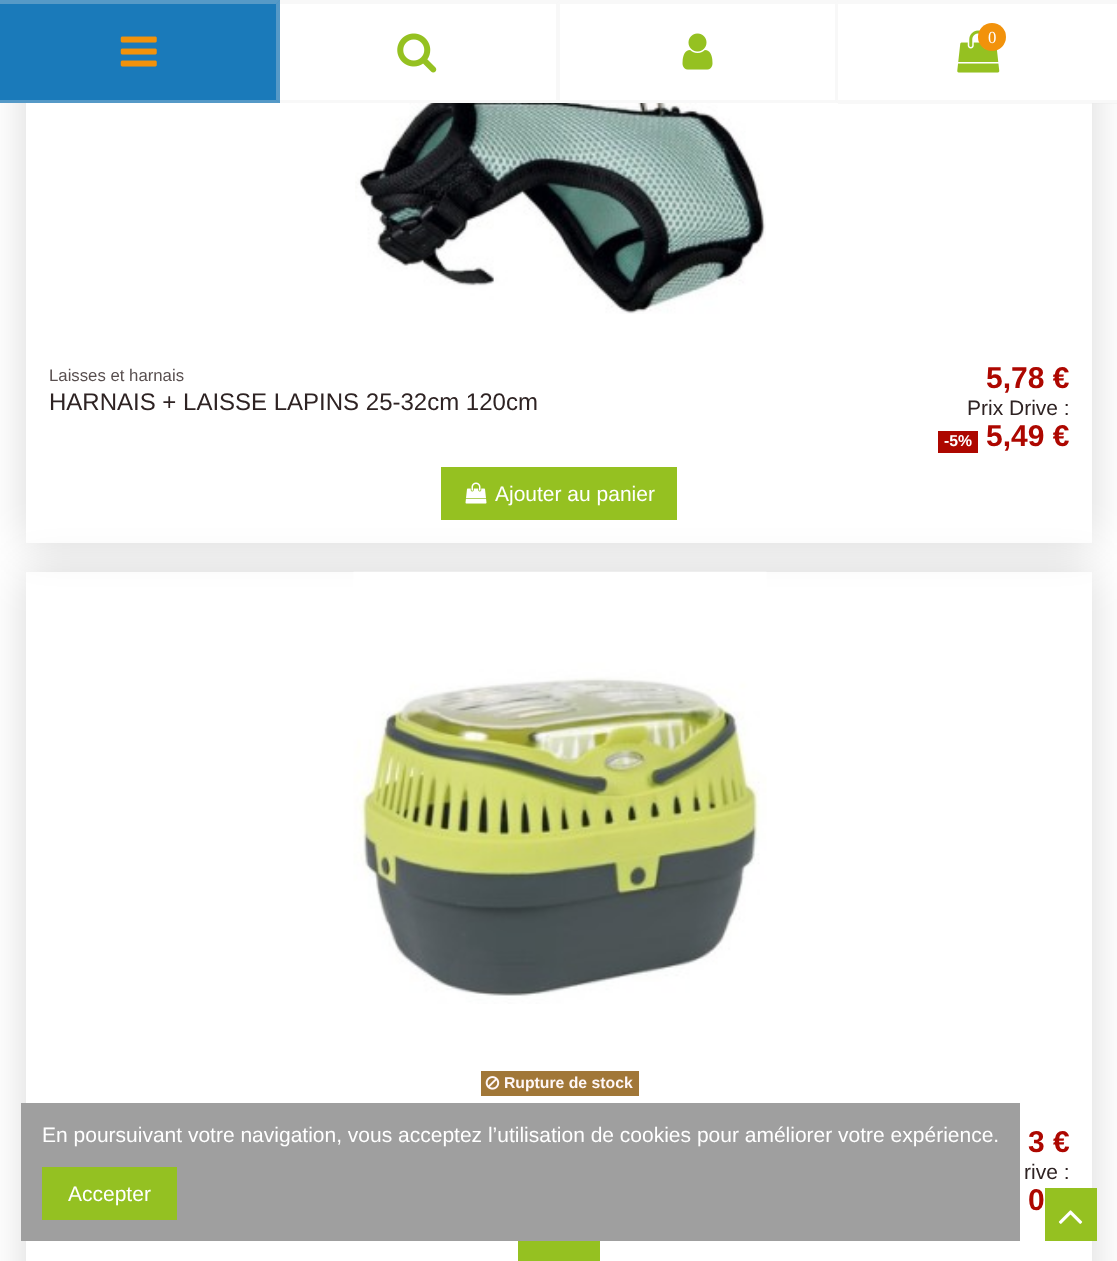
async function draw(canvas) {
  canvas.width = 1117
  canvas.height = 1261
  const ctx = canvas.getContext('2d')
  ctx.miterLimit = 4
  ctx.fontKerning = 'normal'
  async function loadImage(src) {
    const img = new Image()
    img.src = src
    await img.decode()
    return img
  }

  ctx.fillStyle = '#fff'
  ctx.fillRect(0, 0, 1117, 1261)
  ctx.save()
  ctx.beginPath()
  ctx.moveTo(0, 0)
  ctx.lineTo(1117, 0)
  ctx.lineTo(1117, 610)
  ctx.lineTo(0, 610)
  ctx.closePath()
  ctx.moveTo(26, -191)
  ctx.lineTo(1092, -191)
  ctx.lineTo(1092, 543)
  ctx.lineTo(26, 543)
  ctx.closePath()
  ctx.clip('evenodd')
  ctx.fillStyle = '#00000026'
  ctx.filter = 'blur(22px)'
  ctx.beginPath()
  ctx.rect(26, -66, 1066, 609)
  ctx.fill()
  ctx.filter = 'none'
  ctx.restore()
  ctx.fillRect(1092, 0, 25, 103)
  ctx.fillStyle = '#1a7aba'
  ctx.fillRect(0, 0, 280, 103)
  ctx.fillStyle = '#569ac7'
  ctx.beginPath()
  ctx.moveTo(0, 0)
  ctx.lineTo(280, 0)
  ctx.lineTo(276, 4)
  ctx.lineTo(0, 4)
  ctx.closePath()
  ctx.fill()
  ctx.fillStyle = '#e8e8e84a'
  ctx.beginPath()
  ctx.moveTo(280, 0)
  ctx.lineTo(280, 103)
  ctx.lineTo(276, 100)
  ctx.lineTo(276, 4)
  ctx.closePath()
  ctx.fill()
  ctx.beginPath()
  ctx.moveTo(280, 103)
  ctx.lineTo(0, 103)
  ctx.lineTo(0, 100)
  ctx.lineTo(276, 100)
  ctx.closePath()
  ctx.fill()
  ctx.drawImage(await loadImage('image0.png'), 120, 36, 37, 31)
  ctx.fillStyle = '#f8f8f8'
  ctx.beginPath()
  ctx.moveTo(280, 0)
  ctx.lineTo(560, 0)
  ctx.lineTo(556, 4)
  ctx.lineTo(280, 4)
  ctx.closePath()
  ctx.fill()
  ctx.fillStyle = '#e8e8e84a'
  ctx.beginPath()
  ctx.moveTo(560, 0)
  ctx.lineTo(560, 103)
  ctx.lineTo(556, 100)
  ctx.lineTo(556, 4)
  ctx.closePath()
  ctx.fill()
  ctx.fillStyle = '#f8f8f8'
  ctx.beginPath()
  ctx.moveTo(560, 103)
  ctx.lineTo(280, 103)
  ctx.lineTo(280, 100)
  ctx.lineTo(556, 100)
  ctx.closePath()
  ctx.fill()
  ctx.drawImage(await loadImage('image1.png'), 397, 33, 40, 40)
  ctx.beginPath()
  ctx.moveTo(560, 0)
  ctx.lineTo(838, 0)
  ctx.lineTo(835, 4)
  ctx.lineTo(560, 4)
  ctx.closePath()
  ctx.fill()
  ctx.fillStyle = '#e8e8e84a'
  ctx.beginPath()
  ctx.moveTo(838, 0)
  ctx.lineTo(838, 103)
  ctx.lineTo(835, 100)
  ctx.lineTo(835, 4)
  ctx.closePath()
  ctx.fill()
  ctx.beginPath()
  ctx.moveTo(838, 103)
  ctx.lineTo(560, 103)
  ctx.lineTo(560, 100)
  ctx.lineTo(835, 100)
  ctx.closePath()
  ctx.fill()
  ctx.drawImage(await loadImage('image2.png'), 682, 33, 31, 37)
  ctx.fillStyle = '#f8f8f8'
  ctx.fillRect(838, 0, 279, 4)
  ctx.fillStyle = '#e8e8e84a'
  ctx.fillRect(838, 100, 279, 4)
  ctx.drawImage(await loadImage('image3.png'), 957, 30, 43, 43)
  ctx.fillStyle = '#f2920b'
  ctx.beginPath()
  ctx.arc(992, 37, 14, 0, 2 * Math.PI)
  ctx.fill()
  ctx.font = '16.75px Liberation Serif'
  ctx.fillStyle = '#fff'
  ctx.fillText('0', 988, 43)
  ctx.drawImage(await loadImage('image4.png'), 355, 103, 411, 211)
  ctx.font = '16.75px Liberation Sans'
  ctx.fillStyle = '#584f4f'
  ctx.fillText('Laisses et harnais', 49, 381)
  ctx.font = '24px Liberation Sans'
  ctx.fillStyle = '#2e2323'
  ctx.fillText('HARNAIS + LAISSE LAPINS 25-32cm 120cm', 49, 410)
  ctx.font = 'bold 30px Liberation Sans'
  ctx.fillStyle = '#ad0700'
  ctx.fillText('5,78 €', 986, 388)
  ctx.font = '21px Liberation Sans'
  ctx.fillStyle = '#2e2323'
  ctx.fillText('Prix Drive :', 967, 415)
  ctx.fillStyle = '#ad0700'
  ctx.fillRect(938, 431, 40, 22)
  ctx.font = 'bold 15.75px Liberation Sans'
  ctx.fillStyle = '#fff'
  ctx.fillText('-5%', 944, 446)
  ctx.font = 'bold 30px Liberation Sans'
  ctx.fillStyle = '#ad0700'
  ctx.fillText('5,49 €', 986, 446)
  ctx.fillStyle = '#95c121'
  ctx.fillRect(441, 467, 236, 53)
  ctx.drawImage(await loadImage('image5.png'), 465, 482, 22, 22)
  ctx.font = '21px Liberation Sans'
  ctx.fillStyle = '#fff'
  ctx.fillText('Ajouter au panier', 495, 501)
  ctx.save()
  ctx.beginPath()
  ctx.moveTo(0, 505)
  ctx.lineTo(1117, 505)
  ctx.lineTo(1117, 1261)
  ctx.lineTo(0, 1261)
  ctx.closePath()
  ctx.moveTo(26, 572)
  ctx.lineTo(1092, 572)
  ctx.lineTo(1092, 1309)
  ctx.lineTo(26, 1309)
  ctx.closePath()
  ctx.clip('evenodd')
  ctx.fillStyle = '#00000026'
  ctx.filter = 'blur(22px)'
  ctx.beginPath()
  ctx.rect(26, 572, 1066, 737)
  ctx.fill()
  ctx.filter = 'none'
  ctx.restore()
  ctx.drawImage(await loadImage('image6.png'), 353, 571, 414, 433)
  ctx.fillStyle = '#a17738'
  ctx.fillRect(481, 1071, 158, 25)
  ctx.drawImage(await loadImage('image7.png'), 485, 1076, 15, 14)
  ctx.font = 'bold 15.75px Liberation Sans'
  ctx.fillStyle = '#fff7f7'
  ctx.fillText('Rupture de stock', 504, 1088)
  ctx.font = 'bold 30px Liberation Sans'
  ctx.fillStyle = '#ad0700'
  ctx.fillText('3 €', 1028, 1152)
  ctx.font = '21px Liberation Sans'
  ctx.fillStyle = '#2e2323'
  ctx.fillText('rive :', 1024, 1179)
  ctx.font = 'bold 30px Liberation Sans'
  ctx.fillStyle = '#ad0700'
  ctx.fillText('0', 1028, 1210)
  ctx.fillStyle = '#95c121'
  ctx.fillRect(518, 1241, 82, 20)
  ctx.fillStyle = '#9f9f9f'
  ctx.fillRect(21, 1103, 999, 138)
  ctx.font = '21px Liberation Sans'
  ctx.fillStyle = '#fff'
  ctx.fillText('En poursuivant votre navigation, vous acceptez l’utilisation de cookies pour améliorer votre expérience.', 42, 1142)
  ctx.fillStyle = '#94c122'
  ctx.fillRect(42, 1167, 135, 53)
  ctx.fillStyle = '#fff'
  ctx.fillText('Accepter', 68, 1201)
  ctx.fillStyle = '#95c121'
  ctx.fillRect(1045, 1188, 52, 53)
  ctx.drawImage(await loadImage('image8.png'), 1058, 1210, 25, 14)
}

draw(document.querySelector('canvas'))
